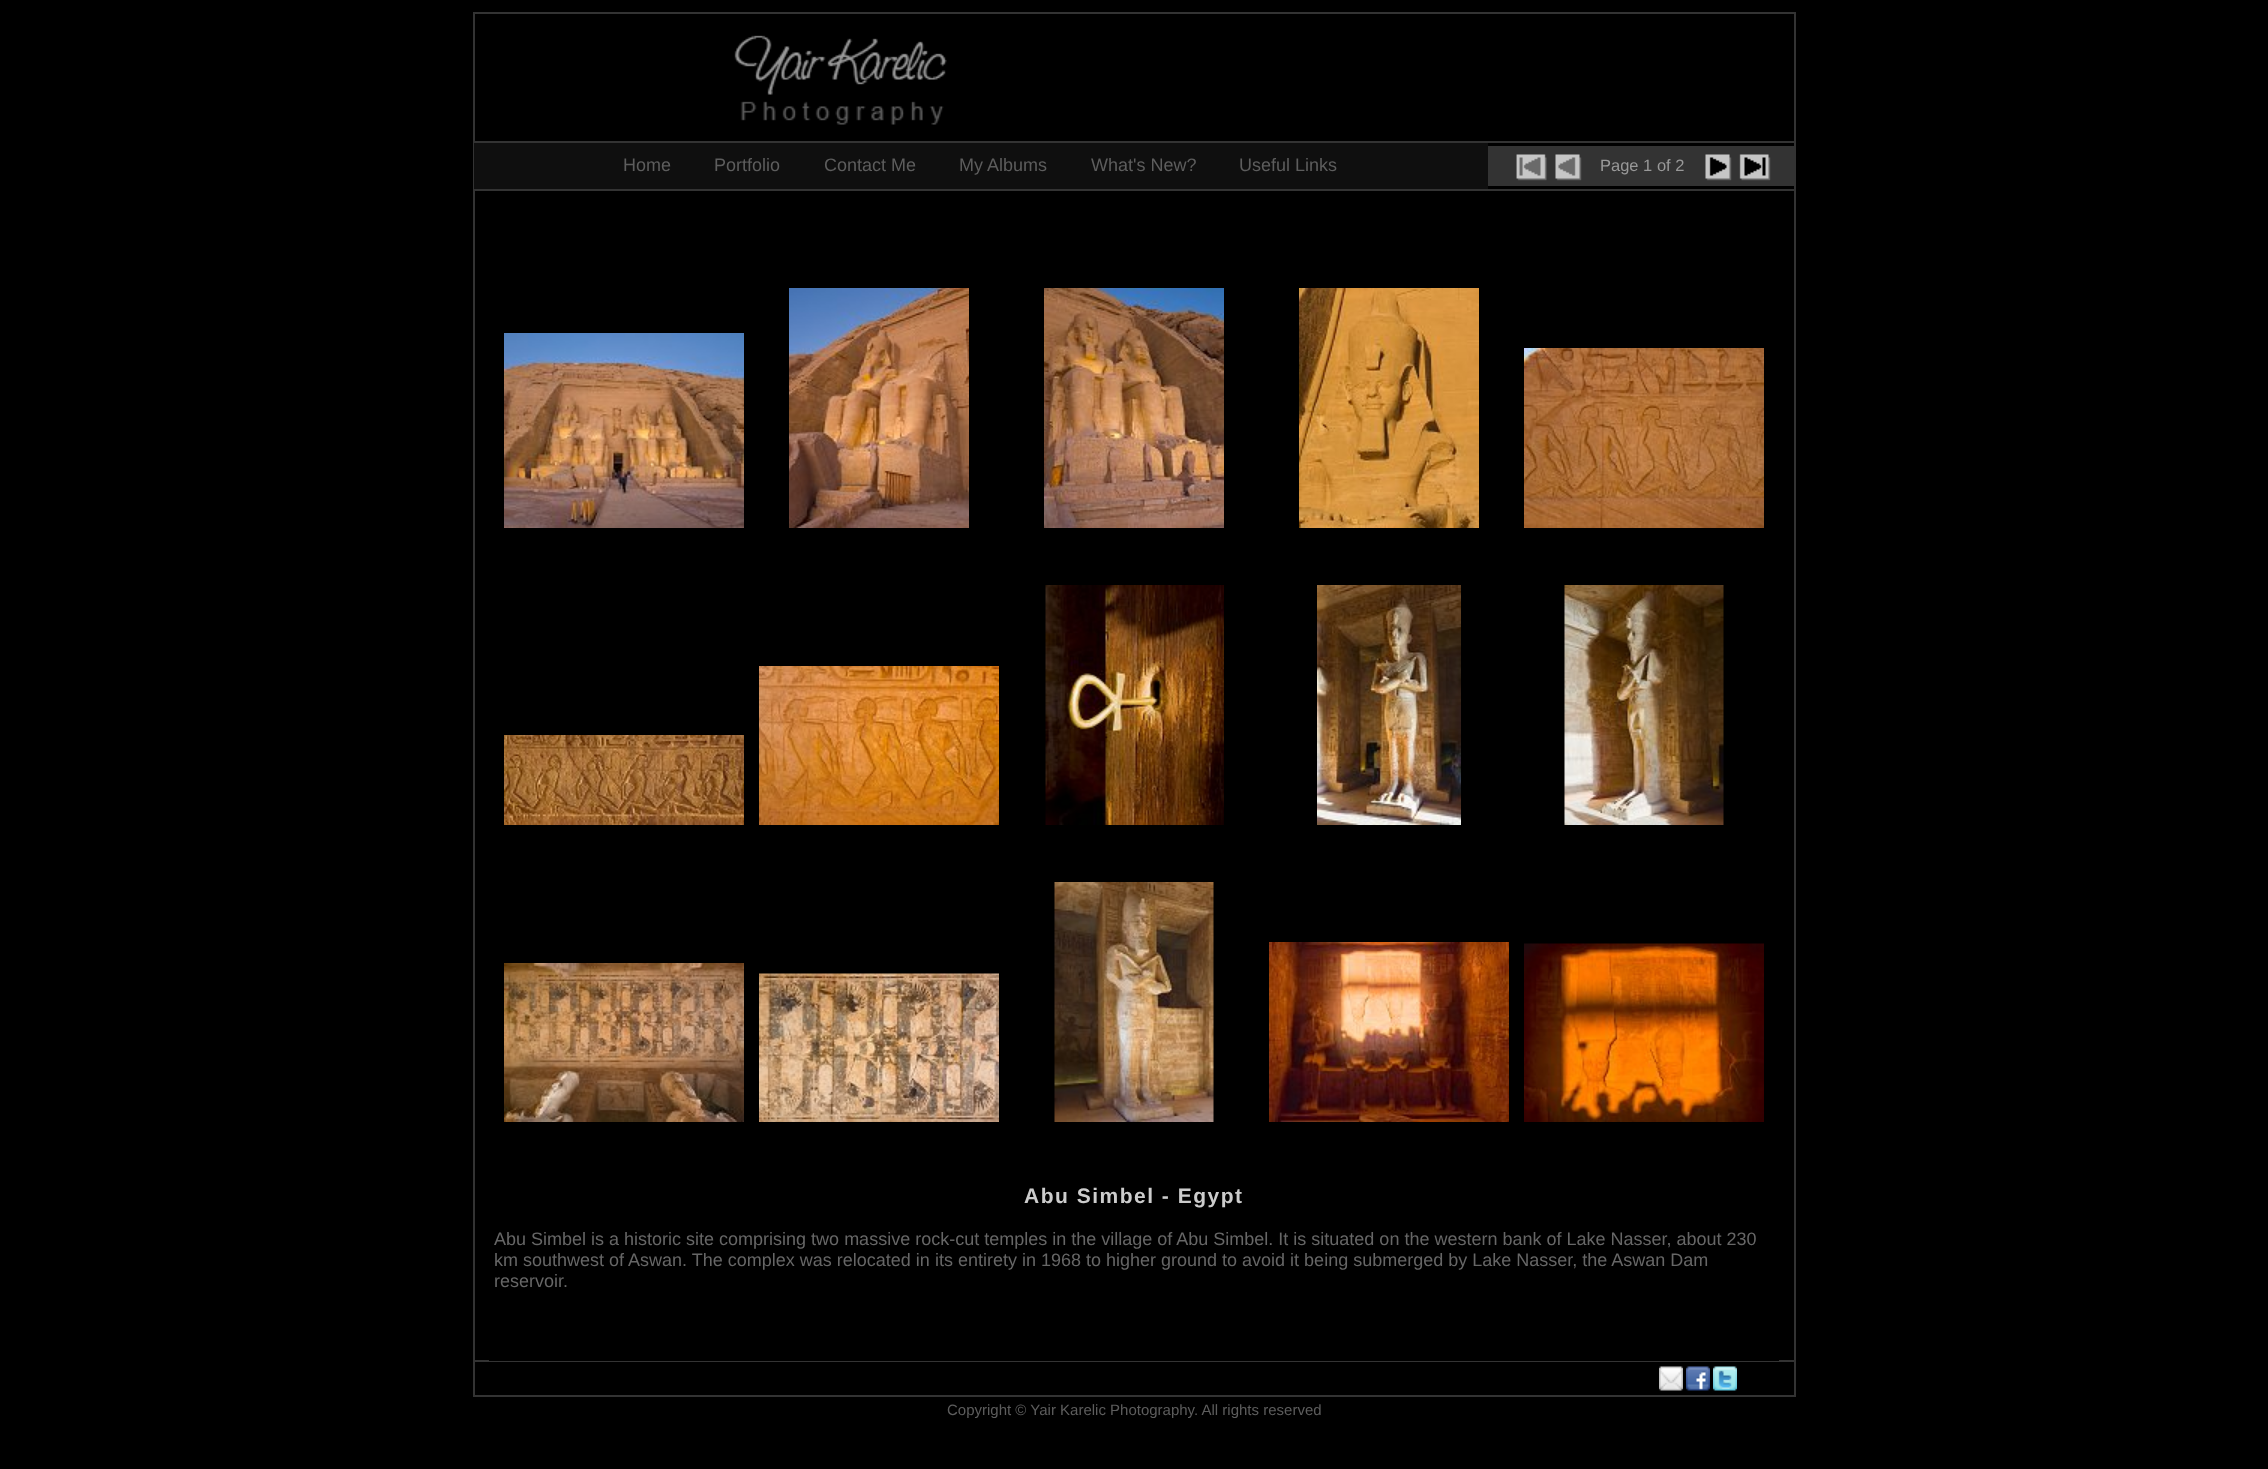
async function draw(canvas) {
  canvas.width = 2268
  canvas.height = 1469
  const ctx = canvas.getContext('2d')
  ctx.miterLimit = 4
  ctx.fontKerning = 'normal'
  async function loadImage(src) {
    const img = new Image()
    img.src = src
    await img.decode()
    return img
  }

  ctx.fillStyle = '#000'
  ctx.fillRect(0, 0, 2268, 1469)
  ctx.strokeStyle = '#333'
  ctx.lineWidth = 2
  ctx.strokeRect(474, 13, 1321, 1348)
  ctx.fillStyle = '#0f0f0f'
  ctx.fillRect(474, 143, 1014, 46)
  ctx.font = '18px Liberation Sans'
  ctx.fillStyle = '#5d5d5d'
  ctx.fillText('Home', 623, 171)
  ctx.fillText('Portfolio', 714, 171)
  ctx.fillText('Contact Me', 824, 171)
  ctx.fillText('My Albums', 959, 171)
  ctx.fillText('What\'s New?', 1091, 171)
  ctx.fillText('Useful Links', 1239, 171)
  ctx.drawImage(await loadImage('image0.png'), 734, 35, 213, 90)
  ctx.fillStyle = '#333'
  ctx.fillRect(474, 141, 1320, 2)
  ctx.fillRect(474, 189, 1320, 2)
  ctx.fillRect(1488, 146, 306, 40)
  ctx.drawImage(await loadImage('image1.png'), 1516, 154, 31, 27)
  ctx.drawImage(await loadImage('image2.png'), 1555, 154, 27, 27)
  ctx.font = '16.5px Liberation Sans'
  ctx.fillStyle = '#999'
  ctx.fillText('Page 1 of 2', 1600, 171)
  ctx.drawImage(await loadImage('image3.png'), 1705, 154, 27, 27)
  ctx.drawImage(await loadImage('image4.png'), 1739, 154, 32, 27)
  ctx.fillStyle = '#000'
  ctx.fillRect(489, 1360, 1290, 1)
  ctx.drawImage(await loadImage('image5.png'), 504, 333, 240, 195)
  ctx.drawImage(await loadImage('image6.png'), 789, 288, 180, 240)
  ctx.drawImage(await loadImage('image7.png'), 1044, 288, 180, 240)
  ctx.drawImage(await loadImage('image8.png'), 1299, 288, 180, 240)
  ctx.drawImage(await loadImage('image9.png'), 1524, 348, 240, 180)
  ctx.drawImage(await loadImage('image10.png'), 504, 735, 240, 90)
  ctx.drawImage(await loadImage('image11.png'), 759, 666, 240, 159)
  ctx.drawImage(await loadImage('image12.png'), 1045, 585, 179, 240)
  ctx.drawImage(await loadImage('image13.png'), 1317, 585, 144, 240)
  ctx.drawImage(await loadImage('image14.png'), 1564, 585, 160, 240)
  ctx.drawImage(await loadImage('image15.png'), 504, 963, 240, 159)
  ctx.drawImage(await loadImage('image16.png'), 759, 973, 240, 149)
  ctx.drawImage(await loadImage('image17.png'), 1054, 882, 160, 240)
  ctx.drawImage(await loadImage('image18.png'), 1269, 942, 240, 180)
  ctx.drawImage(await loadImage('image19.png'), 1524, 943, 240, 179)
  ctx.letterSpacing = '1.5px'
  ctx.font = 'bold 21px Liberation Sans'
  ctx.fillStyle = '#ccc'
  ctx.fillText('Abu Simbel - Egypt', 1024, 1203)
  ctx.letterSpacing = '0px'
  ctx.font = '18px Liberation Sans'
  ctx.fillStyle = '#666'
  ctx.fillText('Abu Simbel is a historic site comprising two massive rock-cut temples in the village of Abu Simbel. It is situated on the western bank of Lake Nasser, about 230', 494, 1245)
  ctx.fillText('km southwest of Aswan. The complex was relocated in its entirety in 1968 to higher ground to avoid it being submerged by Lake Nasser, the Aswan Dam', 494, 1266)
  ctx.fillText('reservoir.', 494, 1287)
  ctx.fillStyle = '#333'
  ctx.fillRect(1794, 1362, 2, 35)
  ctx.fillRect(473, 1395, 1323, 2)
  ctx.fillRect(473, 1362, 2, 35)
  ctx.drawImage(await loadImage('image20.png'), 1659, 1366, 24, 25)
  ctx.drawImage(await loadImage('image21.png'), 1686, 1366, 24, 25)
  ctx.drawImage(await loadImage('image22.png'), 1713, 1366, 24, 25)
  ctx.font = '15px Liberation Sans'
  ctx.fillStyle = '#5d5d5d'
  ctx.fillText('Copyright © Yair Karelic Photography. All rights reserved', 947, 1415)
}

draw(document.querySelector('canvas'))
